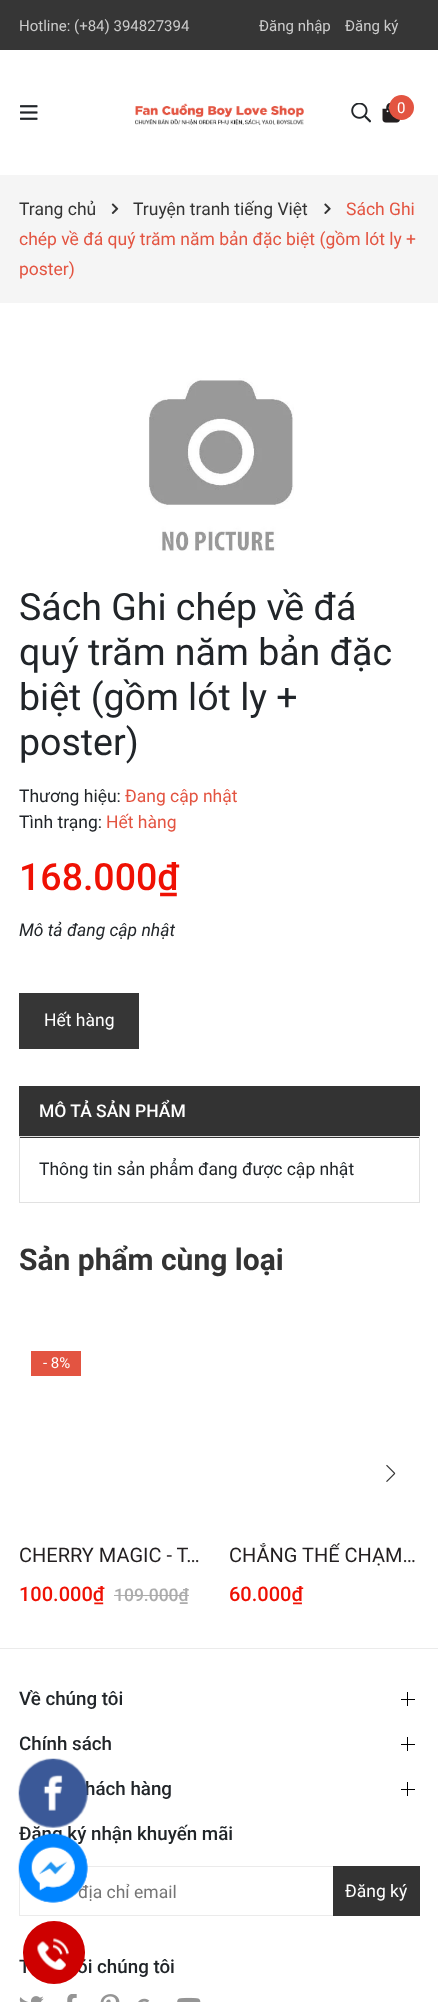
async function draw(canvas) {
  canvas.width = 438
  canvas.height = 2002
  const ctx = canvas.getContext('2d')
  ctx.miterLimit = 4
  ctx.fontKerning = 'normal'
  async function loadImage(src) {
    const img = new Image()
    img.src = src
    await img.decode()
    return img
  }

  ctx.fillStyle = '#fff'
  ctx.fillRect(0, 0, 438, 2002)
  ctx.fillStyle = '#363636'
  ctx.fillRect(0, 0, 438, 50)
  ctx.font = '15px Roboto'
  ctx.fillStyle = '#ccc'
  ctx.fillText('Hotline: (+84) 394827394', 19, 31)
  ctx.fillText('Đăng nhập', 259, 31)
  ctx.fillText('Đăng ký', 345, 31)
  ctx.drawImage(await loadImage('image0.png'), 135, 103, 169, 22)
  ctx.drawImage(await loadImage('image1.png'), 20, 105, 18, 15)
  ctx.drawImage(await loadImage('image2.png'), 351, 103, 20, 20)
  ctx.drawImage(await loadImage('image3.png'), 382, 103, 18, 20)
  ctx.fillStyle = '#e35441'
  ctx.beginPath()
  ctx.arc(401.5, 107.5, 12.5, 0, 2 * Math.PI)
  ctx.fill()
  ctx.fillStyle = '#fff'
  ctx.fillText('0', 397, 113)
  ctx.fillStyle = '#f5f5f5'
  ctx.fillRect(0, 175, 438, 128)
  ctx.font = '17.5px Roboto'
  ctx.fillStyle = '#333'
  ctx.fillText('Trang chủ', 19, 215)
  ctx.drawImage(await loadImage('image4.png'), 111, 203, 8, 11)
  ctx.fillText('Truyện tranh tiếng Việt', 133, 215)
  ctx.drawImage(await loadImage('image5.png'), 324, 203, 7, 11)
  ctx.fillStyle = '#e35441'
  ctx.fillText('Sách Ghi', 346, 215)
  ctx.fillText('chép về đá quý trăm năm bản đặc biệt (gồm lót ly +', 19, 245)
  ctx.fillText('poster)', 19, 275)
  ctx.drawImage(await loadImage('image6.png'), 148, 378, 146, 173)
  ctx.font = '37.5px Roboto'
  ctx.fillStyle = '#212529'
  ctx.fillText('Sách Ghi chép về đá', 19, 620)
  ctx.fillText('quý trăm năm bản đặc', 19, 665)
  ctx.fillText('biệt (gồm lót ly +', 19, 710)
  ctx.fillText('poster)', 19, 755)
  ctx.font = '17.5px Roboto'
  ctx.fillText('Thương hiệu:', 19, 802)
  ctx.fillStyle = '#e35441'
  ctx.fillText('Đang cập nhật', 125, 802)
  ctx.fillStyle = '#212529'
  ctx.fillText('Tình trạng:', 19, 828)
  ctx.fillStyle = '#e35441'
  ctx.fillText('Hết hàng', 106, 828)
  ctx.font = '500 37.5px Roboto'
  ctx.fillStyle = '#ef1104'
  ctx.fillText('168.000₫', 19, 890)
  ctx.font = 'italic 17.5px Roboto'
  ctx.fillStyle = '#212529'
  ctx.fillText('Mô tả đang cập nhật', 19, 936)
  ctx.fillStyle = '#363636'
  ctx.fillRect(19, 993, 120, 56)
  ctx.font = '17.5px Roboto'
  ctx.fillStyle = '#fff'
  ctx.fillText('Hết hàng', 44, 1026)
  ctx.fillStyle = '#333'
  ctx.fillRect(19, 1086, 401, 52)
  ctx.font = '500 17.5px Roboto'
  ctx.fillStyle = '#fff'
  ctx.fillText('MÔ TẢ SẢN PHẨM', 39, 1117)
  ctx.strokeStyle = '#e1e1e1'
  ctx.strokeRect(19.5, 1136.5, 400, 66)
  ctx.font = '17.5px Roboto'
  ctx.fillStyle = '#212529'
  ctx.fillText('Thông tin sản phẩm đang được cập nhật', 39, 1175)
  ctx.font = 'bold 30px Roboto'
  ctx.fillStyle = '#333'
  ctx.fillText('Sản phẩm cùng loại', 19, 1270)
  ctx.fillStyle = '#e35441'
  ctx.fillRect(31, 1351, 50, 25)
  ctx.font = '15px Roboto'
  ctx.fillStyle = '#fff'
  ctx.fillText('- 8%', 43, 1368)
  ctx.font = '20px Roboto'
  ctx.fillStyle = '#231f20'
  ctx.fillText('CHERRY MAGIC - T…', 19, 1562)
  ctx.font = '500 20px Roboto'
  ctx.fillStyle = '#ef1104'
  ctx.fillText('100.000₫', 19, 1601)
  ctx.font = '500 17.5px Roboto'
  ctx.fillStyle = '#acacac'
  ctx.fillText('109.000₫', 114, 1601)
  ctx.fillRect(114, 1595, 75, 1)
  ctx.save()
  ctx.beginPath()
  ctx.rect(229, 1543, 191, 27)
  ctx.clip()
  ctx.font = '20px Roboto'
  ctx.fillStyle = '#231f20'
  ctx.fillText('CHẲNG THỂ CHẠM…', 229, 1562)
  ctx.restore()
  ctx.font = '500 20px Roboto'
  ctx.fillStyle = '#ef1104'
  ctx.fillText('60.000₫', 229, 1601)
  ctx.drawImage(await loadImage('image7.png'), 386, 1464, 10, 18)
  ctx.fillStyle = '#ebebeb'
  ctx.fillRect(0, 1648, 438, 1)
  ctx.font = '500 18.75px Roboto'
  ctx.fillStyle = '#212529'
  ctx.fillText('Về chúng tôi', 19, 1705)
  ctx.fillStyle = '#000'
  ctx.fillRect(407, 1692, 1, 14)
  ctx.fillRect(401, 1699, 14, 1)
  ctx.fillStyle = '#212529'
  ctx.fillText('Chính sách', 19, 1750)
  ctx.fillStyle = '#000'
  ctx.fillRect(407, 1737, 1, 14)
  ctx.fillRect(401, 1744, 14, 1)
  ctx.fillStyle = '#212529'
  ctx.fillText('hách hàng', 85, 1795)
  ctx.fillStyle = '#000'
  ctx.fillRect(407, 1782, 1, 14)
  ctx.fillRect(401, 1789, 14, 1)
  ctx.fillStyle = '#212529'
  ctx.fillText('Đăng ký nhận khuyến mãi', 19, 1840)
  ctx.strokeStyle = '#ebebeb'
  ctx.strokeRect(19.5, 1866.5, 400, 49)
  ctx.font = '17.5px Roboto'
  ctx.fillStyle = '#757575'
  ctx.fillText('địa chỉ email', 78, 1898)
  ctx.fillStyle = '#333'
  ctx.fillRect(333, 1866, 87, 50)
  ctx.fillStyle = '#fff'
  ctx.fillText('Đăng ký', 345, 1897)
  ctx.font = '500 18.75px Roboto'
  ctx.fillStyle = '#212529'
  ctx.fillText('T', 19, 1973)
  ctx.fillText('õi chúng tôi', 77, 1973)
  ctx.drawImage(await loadImage('image8.png'), 19, 1996, 25, 6)
  ctx.drawImage(await loadImage('image9.png'), 67, 1994, 10, 8)
  ctx.drawImage(await loadImage('image10.png'), 100, 1994, 20, 8)
  ctx.drawImage(await loadImage('image11.png'), 138, 1998, 12, 4)
  ctx.drawImage(await loadImage('image12.png'), 177, 1997, 24, 5)
  ctx.drawImage(await loadImage('image13.png'), 18, 1758, 70, 70)
  ctx.drawImage(await loadImage('image14.png'), 18, 1833, 70, 70)
  ctx.fillStyle = '#ce0000'
  ctx.beginPath()
  ctx.roundRect(23, 1921, 62, 63, 31)
  ctx.fill()
  ctx.drawImage(await loadImage('image15.png'), 37, 1938, 32, 32)
}

draw(document.querySelector('canvas'))
